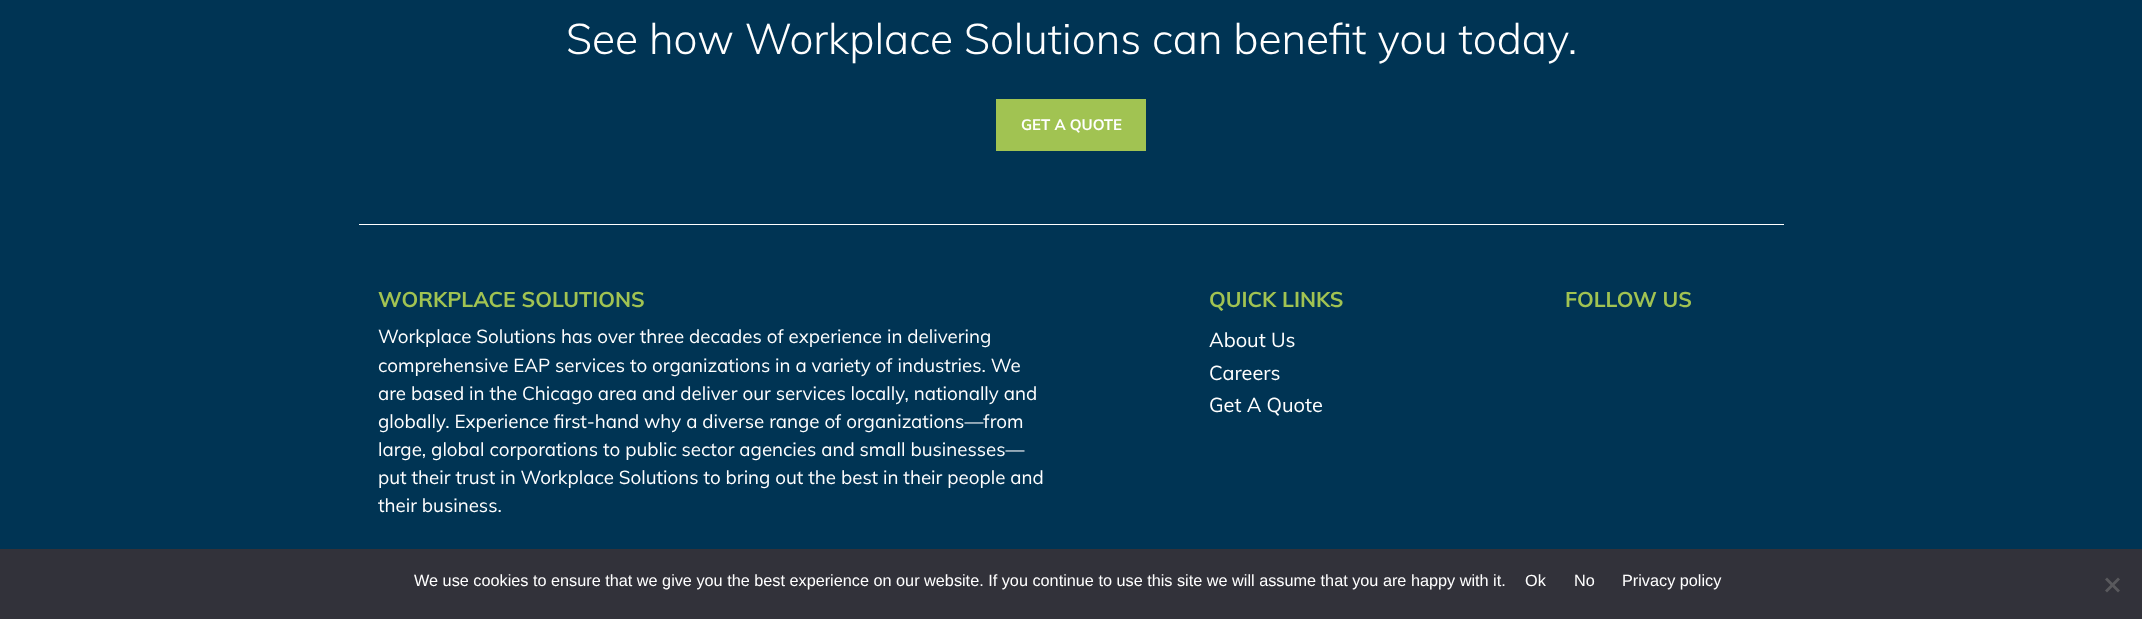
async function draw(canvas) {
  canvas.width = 2142
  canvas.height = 619
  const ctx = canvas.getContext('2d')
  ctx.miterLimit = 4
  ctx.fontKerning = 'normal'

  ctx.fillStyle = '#003454'
  ctx.fillRect(0, 0, 2142, 619)
  ctx.font = '300 42.5px Muli'
  ctx.fillStyle = '#fff'
  ctx.fillText('See how Workplace Solutions can benefit you today.', 566, 54)
  ctx.fillStyle = '#a1c352'
  ctx.fillRect(996, 99, 150, 52)
  ctx.font = 'bold 15px Muli'
  ctx.fillStyle = '#fff'
  ctx.fillText('GET A QUOTE', 1021, 130)
  ctx.fillRect(359, 224, 1425, 1)
  ctx.font = 'bold 21.25px Muli'
  ctx.fillStyle = '#a1c352'
  ctx.fillText('WORKPLACE SOLUTIONS', 378, 307)
  ctx.font = '18.75px Muli'
  ctx.fillStyle = '#fff'
  ctx.fillText('Workplace Solutions has over three decades of experience in delivering', 378, 343)
  ctx.fillText('comprehensive EAP services to organizations in a variety of industries. We', 378, 372)
  ctx.fillText('are based in the Chicago area and deliver our services locally, nationally and', 378, 400)
  ctx.fillText('globally. Experience first-hand why a diverse range of organizations—from', 378, 428)
  ctx.fillText('large, global corporations to public sector agencies and small businesses—', 378, 456)
  ctx.fillText('put their trust in Workplace Solutions to bring out the best in their people and', 378, 484)
  ctx.fillText('their business.', 378, 512)
  ctx.font = 'bold 21.25px Muli'
  ctx.fillStyle = '#a1c352'
  ctx.fillText('QUICK LINKS', 1209, 307)
  ctx.font = '20px Muli'
  ctx.fillStyle = '#fff'
  ctx.fillText('About Us', 1209, 347)
  ctx.fillText('Careers', 1209, 380)
  ctx.fillText('Get A Quote', 1209, 412)
  ctx.font = 'bold 21.25px Muli'
  ctx.fillStyle = '#a1c352'
  ctx.fillText('FOLLOW US', 1565, 307)
  ctx.fillStyle = '#32323a'
  ctx.fillRect(0, 549, 2142, 70)
  ctx.font = '16.25px Liberation Sans'
  ctx.fillStyle = '#fff'
  ctx.fillText('We use cookies to ensure that we give you the best experience on our website. If you continue to use this site we will assume that you are happy with it.', 414, 586)
  ctx.fillText('Ok', 1525, 586)
  ctx.fillText('No', 1574, 586)
  ctx.fillText('Privacy policy', 1622, 586)
  ctx.fillStyle = '#59595d'
  ctx.beginPath()
  ctx.moveTo(2118, 577.5)
  ctx.lineTo(2120, 579.5)
  ctx.lineTo(2107, 592.5)
  ctx.lineTo(2105, 590.5)
  ctx.closePath()
  ctx.fill()
  ctx.beginPath()
  ctx.moveTo(2105, 579.5)
  ctx.lineTo(2107, 577.5)
  ctx.lineTo(2120, 590.5)
  ctx.lineTo(2118, 592.5)
  ctx.closePath()
  ctx.fill()
}

draw(document.querySelector('canvas'))
